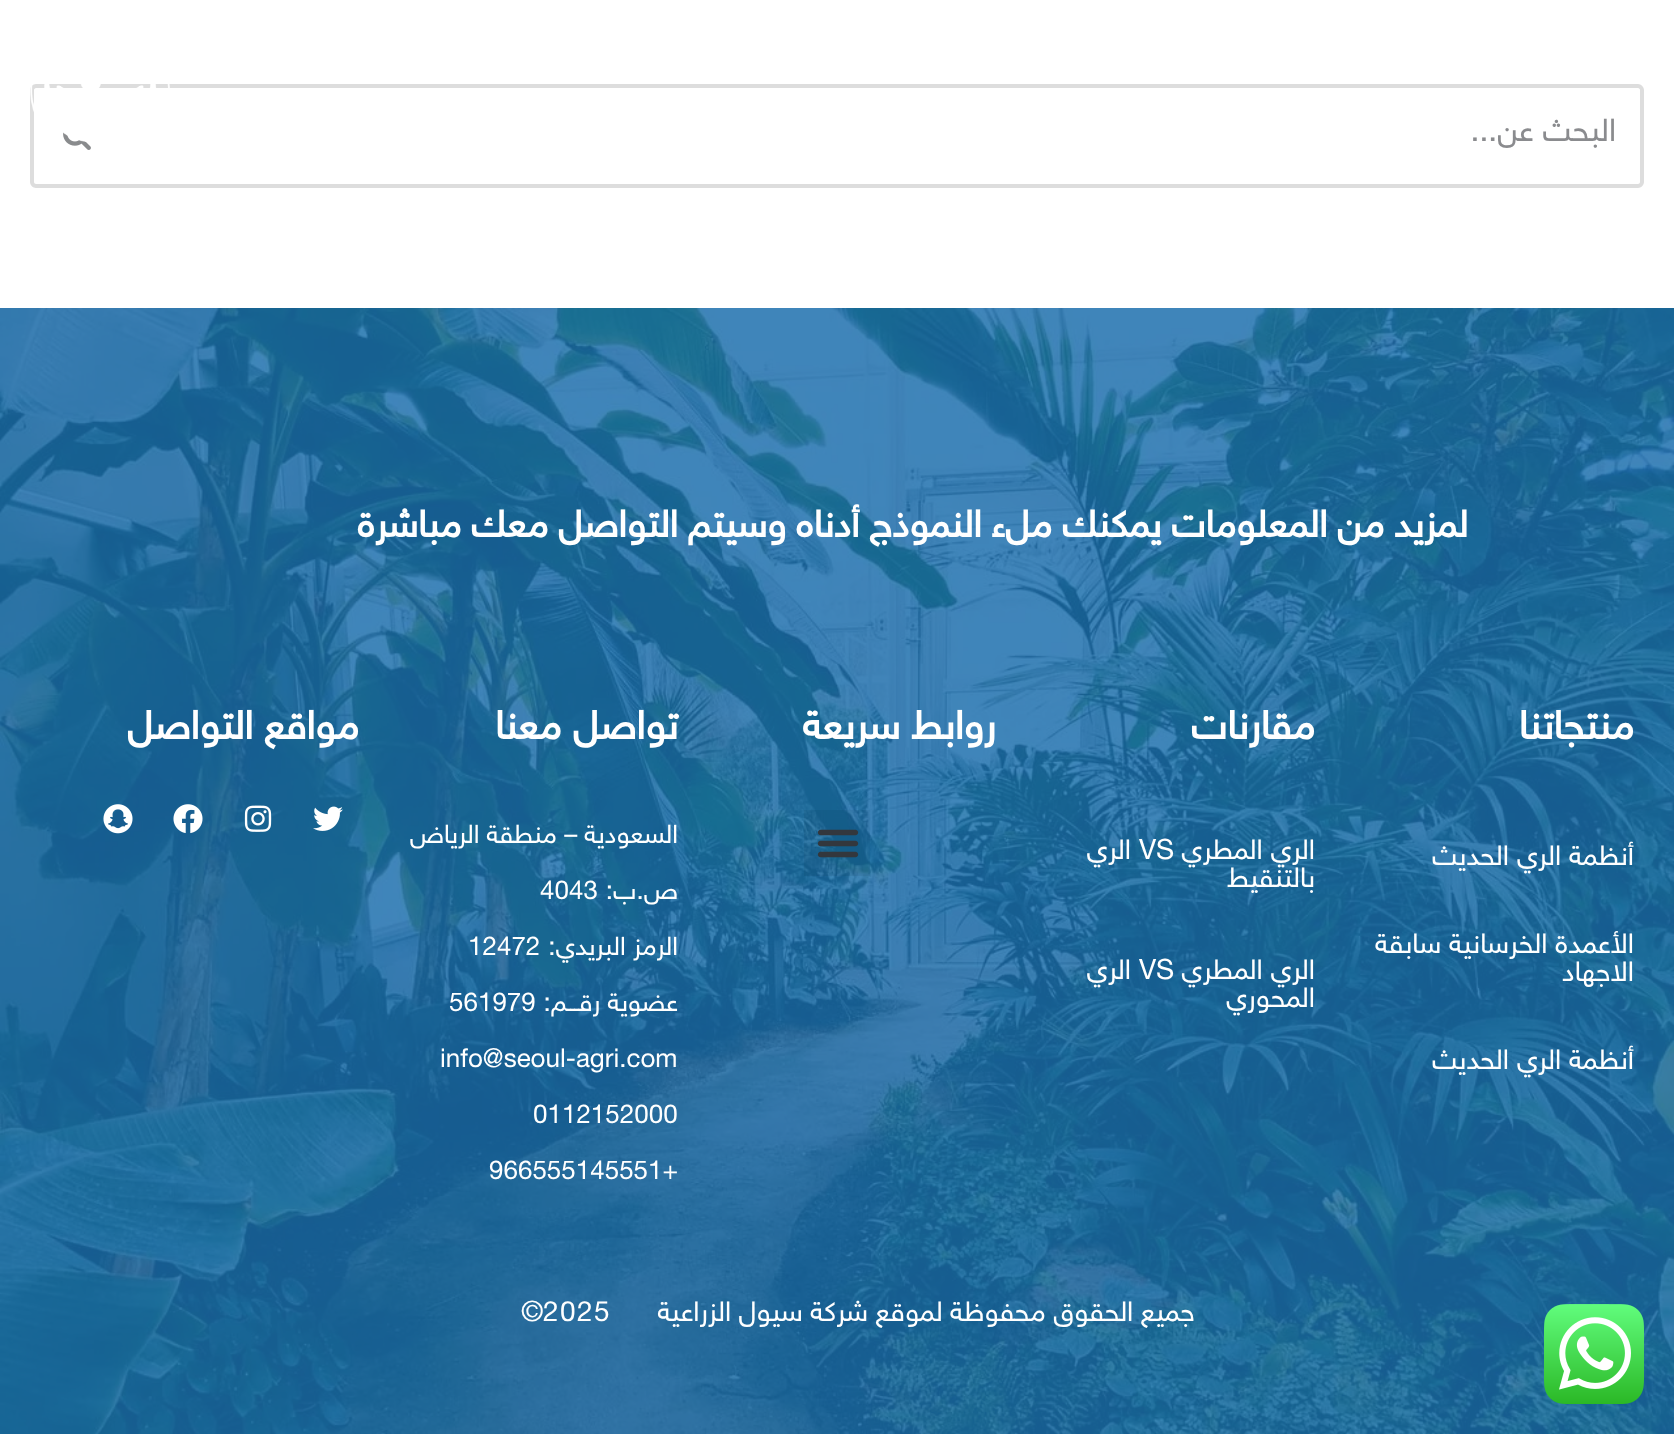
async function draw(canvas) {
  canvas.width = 1674
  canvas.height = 1434
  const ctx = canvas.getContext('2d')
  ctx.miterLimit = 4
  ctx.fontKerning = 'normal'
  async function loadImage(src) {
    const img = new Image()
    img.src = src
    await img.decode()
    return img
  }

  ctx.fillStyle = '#fff'
  ctx.fillRect(0, 0, 1674, 1434)
  ctx.fillStyle = '#ddd'
  ctx.beginPath()
  ctx.moveTo(120, 84)
  ctx.lineTo(1638, 84)
  ctx.bezierCurveTo(1641, 84, 1644, 87, 1644, 90)
  ctx.lineTo(1644, 182)
  ctx.bezierCurveTo(1644, 185, 1641, 188, 1638, 188)
  ctx.lineTo(120, 188)
  ctx.closePath()
  ctx.moveTo(120, 88)
  ctx.lineTo(1638, 88)
  ctx.bezierCurveTo(1639, 88, 1640, 89, 1640, 90)
  ctx.lineTo(1640, 182)
  ctx.bezierCurveTo(1640, 183, 1639, 184, 1638, 184)
  ctx.lineTo(120, 184)
  ctx.closePath()
  ctx.fill('evenodd')
  ctx.direction = 'rtl'
  ctx.font = '32px "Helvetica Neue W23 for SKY"'
  ctx.fillStyle = '#8a8b8e'
  ctx.fillText('البحث عن...', 1616, 141)
  ctx.fillStyle = '#ddd'
  ctx.beginPath()
  ctx.moveTo(36, 84)
  ctx.lineTo(120, 84)
  ctx.lineTo(120, 188)
  ctx.lineTo(36, 188)
  ctx.bezierCurveTo(33, 188, 30, 185, 30, 182)
  ctx.lineTo(30, 90)
  ctx.bezierCurveTo(30, 87, 33, 84, 36, 84)
  ctx.closePath()
  ctx.moveTo(36, 88)
  ctx.lineTo(120, 88)
  ctx.lineTo(120, 184)
  ctx.lineTo(36, 184)
  ctx.bezierCurveTo(35, 184, 34, 183, 34, 182)
  ctx.lineTo(34, 90)
  ctx.bezierCurveTo(34, 89, 35, 88, 36, 88)
  ctx.closePath()
  ctx.fill('evenodd')
  ctx.drawImage(await loadImage('image0.png'), 63, 132, 28, 18)
  ctx.drawImage(await loadImage('image1.png'), 30, 84, 140, 58)
  ctx.drawImage(await loadImage('image2.png'), 0, 308, 1674, 1126)
  ctx.letterSpacing = '1.4px'
  ctx.wordSpacing = '-2.25px'
  ctx.font = 'bold 38px "Helvetica Neue W23 for SKY"'
  ctx.fillStyle = '#fff'
  ctx.fillText('لمزيد من المعلومات يمكنك ملء النموذج أدناه وسيتم التواصل معك مباشرة', 1468, 537)
  ctx.letterSpacing = '0px'
  ctx.wordSpacing = '0px'
  ctx.font = 'bold 40px "Helvetica Neue W23 for SKY"'
  ctx.fillText('منتجاتنا', 1634, 739)
  ctx.font = '28px "Helvetica Neue W23 for SKY"'
  ctx.fillText('أنظمة الري الحديث', 1634, 865)
  ctx.fillText('الأعمدة الخرسانية سابقة', 1634, 953)
  ctx.fillText('الاجهاد', 1634, 981)
  ctx.fillText('أنظمة الري الحديث', 1634, 1069)
  ctx.font = 'bold 40px "Helvetica Neue W23 for SKY"'
  ctx.fillText('مقارنات', 1315, 739)
  ctx.font = '28px "Helvetica Neue W23 for SKY"'
  ctx.fillText('الري المطري', 1315, 859)
  ctx.direction = 'ltr'
  ctx.fillText('VS', 1139, 859)
  ctx.direction = 'rtl'
  ctx.fillText('الري', 1131, 859)
  ctx.fillText('بالتنقيط', 1315, 887)
  ctx.fillText('الري المطري', 1315, 979)
  ctx.direction = 'ltr'
  ctx.fillText('VS', 1139, 979)
  ctx.direction = 'rtl'
  ctx.fillText('الري', 1131, 979)
  ctx.fillText('المحوري', 1315, 1007)
  ctx.font = 'bold 40px "Helvetica Neue W23 for SKY"'
  ctx.fillText('روابط سريعة', 996, 739)
  ctx.fillStyle = '#0000000d'
  ctx.fillRect(804, 810, 66, 66)
  ctx.drawImage(await loadImage('image3.png'), 817, 829, 42, 29)
  ctx.fillStyle = '#fff'
  ctx.fillText('تواصل معنا', 678, 739)
  ctx.font = '26px "Helvetica Neue W23 for SKY"'
  ctx.fillText('السعودية – منطقة الرياض', 678, 843)
  ctx.fillText('ص.ب:', 678, 899)
  ctx.direction = 'ltr'
  ctx.fillText('4043', 540, 899)
  ctx.direction = 'rtl'
  ctx.fillText('الرمز البريدي:', 678, 955)
  ctx.direction = 'ltr'
  ctx.fillText('12472', 468, 955)
  ctx.direction = 'rtl'
  ctx.fillText('عضوية رقـــم:', 678, 1011)
  ctx.direction = 'ltr'
  ctx.fillText('561979', 449, 1011)
  ctx.fillText('info@seoul-agri.com', 440, 1067)
  ctx.fillText('0112152000', 533, 1123)
  ctx.fillText('966555145551+', 489, 1179)
  ctx.direction = 'rtl'
  ctx.font = 'bold 40px "Helvetica Neue W23 for SKY"'
  ctx.fillText('مواقع التواصل', 359, 739)
  ctx.drawImage(await loadImage('image4.png'), 313, 806, 30, 25)
  ctx.drawImage(await loadImage('image5.png'), 244, 805, 28, 27)
  ctx.drawImage(await loadImage('image6.png'), 173, 804, 30, 30)
  ctx.drawImage(await loadImage('image7.png'), 103, 804, 30, 30)
  ctx.letterSpacing = '1.4px'
  ctx.direction = 'ltr'
  ctx.font = '28px "Helvetica Neue W23 for SKY"'
  ctx.fillText('2025', 543, 1321)
  ctx.wordSpacing = '-1.75px'
  ctx.direction = 'rtl'
  ctx.fillText('جميع الحقوق محفوظة لموقع شركة سيول الزراعية', 1195, 1321)
  ctx.wordSpacing = '0px'
  ctx.direction = 'ltr'
  ctx.fillText('©', 521, 1321)
  ctx.drawImage(await loadImage('image8.png'), 1544, 1304, 100, 100)
}

draw(document.querySelector('canvas'))
